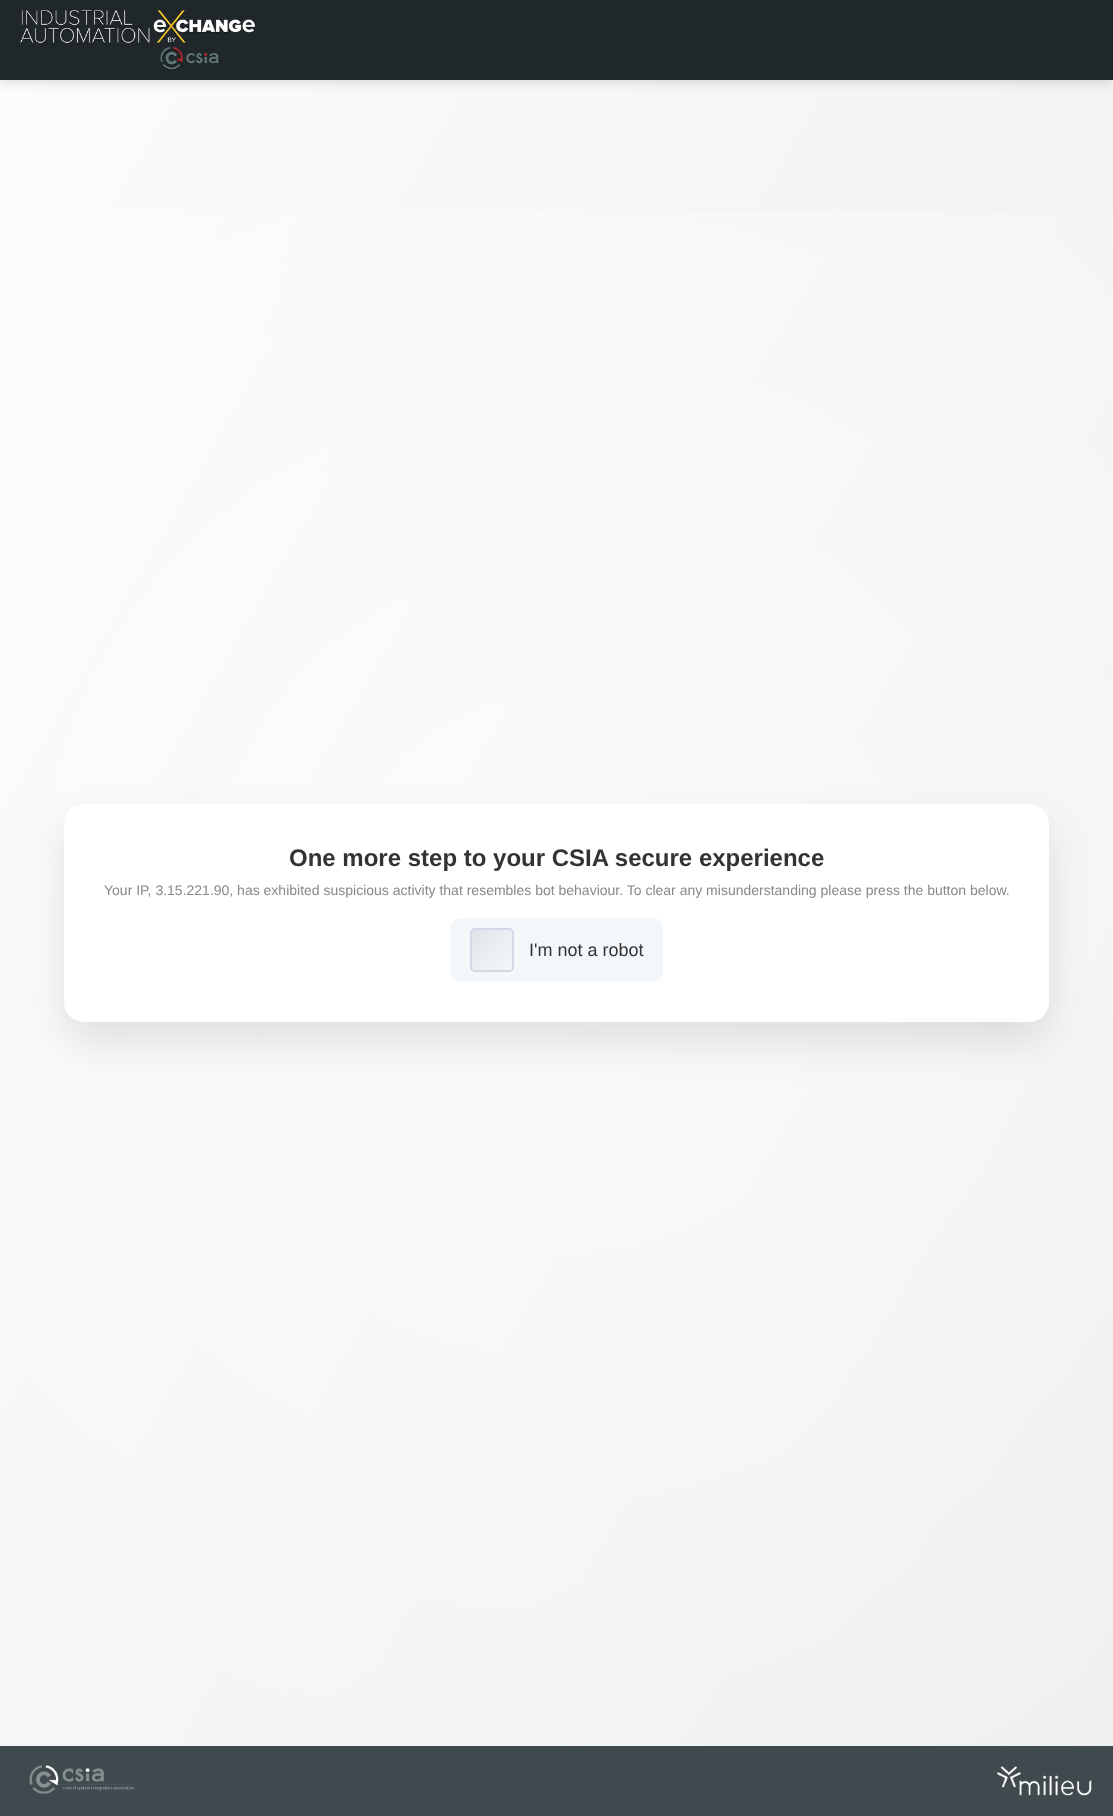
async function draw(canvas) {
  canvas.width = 1113
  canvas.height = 1816
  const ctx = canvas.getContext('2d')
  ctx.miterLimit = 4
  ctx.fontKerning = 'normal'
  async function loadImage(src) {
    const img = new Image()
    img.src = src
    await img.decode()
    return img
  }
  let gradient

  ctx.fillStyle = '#fff'
  ctx.fillRect(0, 0, 1113, 1816)
  gradient = ctx.createLinearGradient(-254, 440, 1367, 1376)
  gradient.addColorStop(0, '#fdfbfb')
  gradient.addColorStop(1, '#ebedee')
  ctx.fillStyle = gradient
  ctx.fillRect(0, 80, 1113, 1666)
  ctx.fillStyle = '#0000001a'
  ctx.filter = 'blur(4px)'
  ctx.beginPath()
  ctx.rect(0, 4, 1113, 80)
  ctx.fill()
  ctx.filter = 'none'
  ctx.fillStyle = '#20272a'
  ctx.fillRect(0, 0, 1113, 80)
  ctx.drawImage(await loadImage('image0.png'), 20, 10, 235, 60)
  gradient = ctx.createRadialGradient(557, 908, 0, 557, 908, 2130)
  gradient.addColorStop(0, '#ffffff99')
  gradient.addColorStop(0.6, '#ffffff00')
  ctx.fillStyle = gradient
  ctx.fillRect(0, 211, 1113, 1535)
  ctx.fillStyle = '#0000001a'
  ctx.filter = 'blur(20px)'
  ctx.beginPath()
  ctx.roundRect(64, 824, 985, 218, 20)
  ctx.fill()
  ctx.filter = 'none'
  ctx.fillStyle = '#fff'
  ctx.beginPath()
  ctx.roundRect(64, 804, 985, 218, 20)
  ctx.fill()
  ctx.font = 'bold 24px Liberation Sans'
  ctx.fillStyle = '#333'
  ctx.fillText('One more step to your CSIA secure experience', 289, 866)
  ctx.font = '14px Liberation Sans'
  ctx.fillStyle = '#888'
  ctx.fillText('Your IP, 3.15.221.90, has exhibited suspicious activity that resembles bot behaviour. To clear any misunderstanding please press the button below.', 104, 895)
  ctx.fillStyle = '#f4f7fa'
  ctx.beginPath()
  ctx.roundRect(450, 918, 213, 64, 10)
  ctx.fill()
  ctx.save()
  ctx.beginPath()
  ctx.roundRect(470, 928, 44, 44, 5)
  ctx.clip()
  gradient = ctx.createLinearGradient(512, 890, 552, 930)
  gradient.addColorStop(0, '#e0e4e9')
  gradient.addColorStop(1, '#f5f8fa')
  ctx.fillStyle = gradient
  ctx.fillRect(512, 929, 2, 1)
  ctx.restore()
  gradient = ctx.createLinearGradient(472, 930, 512, 970)
  gradient.addColorStop(0, '#e0e4e9')
  gradient.addColorStop(1, '#f5f8fa')
  ctx.fillStyle = gradient
  ctx.fillRect(472, 930, 40, 40)
  ctx.save()
  ctx.beginPath()
  ctx.roundRect(470, 928, 44, 44, 5)
  ctx.clip()
  gradient = ctx.createLinearGradient(432, 970, 472, 1010)
  gradient.addColorStop(0, '#e0e4e9')
  gradient.addColorStop(1, '#f5f8fa')
  ctx.fillStyle = gradient
  ctx.fillRect(470, 970, 2, 1)
  gradient = ctx.createLinearGradient(512, 970, 552, 1010)
  gradient.addColorStop(0, '#e0e4e9')
  gradient.addColorStop(1, '#f5f8fa')
  ctx.fillStyle = gradient
  ctx.fillRect(512, 970, 2, 1)
  ctx.restore()
  ctx.beginPath()
  ctx.roundRect(471, 929, 42, 42, 4)
  ctx.strokeStyle = '#d1d9e6'
  ctx.lineWidth = 2
  ctx.stroke()
  ctx.font = '18px Liberation Sans'
  ctx.fillStyle = '#333'
  ctx.fillText('I\'m not a robot', 529, 956)
  ctx.fillStyle = '#3f494e'
  ctx.fillRect(0, 1746, 1113, 70)
  ctx.drawImage(await loadImage('image1.png'), 29, 1765, 106, 29)
  ctx.drawImage(await loadImage('image2.png'), 997, 1766, 95, 30)
}

draw(document.querySelector('canvas'))
